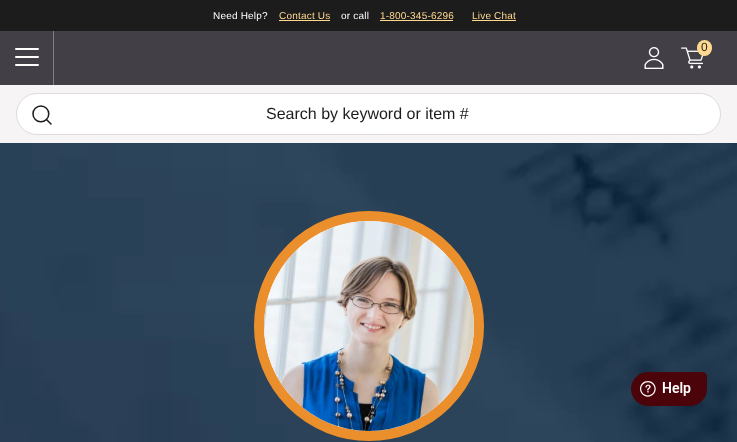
async function draw(canvas) {
  canvas.width = 737
  canvas.height = 442
  const ctx = canvas.getContext('2d')
  ctx.miterLimit = 4
  ctx.fontKerning = 'normal'
  async function loadImage(src) {
    const img = new Image()
    img.src = src
    await img.decode()
    return img
  }

  ctx.fillStyle = '#1c1c1c'
  ctx.fillRect(0, 0, 737, 442)
  ctx.letterSpacing = '0.2px'
  ctx.font = '10px Liberation Sans'
  ctx.fillStyle = '#fff'
  ctx.fillText('Need Help?', 213, 19)
  ctx.fillStyle = '#ffd98f'
  ctx.fillText('Contact Us', 279, 19)
  ctx.fillRect(279, 20, 51, 1)
  ctx.fillStyle = '#fff'
  ctx.fillText('or call', 341, 19)
  ctx.fillStyle = '#ffd98f'
  ctx.fillText('1-800-345-6296', 380, 19)
  ctx.fillRect(380, 20, 73, 1)
  ctx.fillText('Live Chat', 472, 19)
  ctx.fillRect(472, 20, 44, 1)
  ctx.fillStyle = '#423f47'
  ctx.fillRect(0, 31, 737, 54)
  ctx.fillStyle = '#817d82'
  ctx.fillRect(53, 31, 1, 54)
  ctx.drawImage(await loadImage('image0.png'), 15, 48, 24, 18)
  ctx.drawImage(await loadImage('image1.png'), 644, 47, 20, 22)
  ctx.drawImage(await loadImage('image2.png'), 681, 47, 23, 22)
  ctx.fillStyle = '#ffd98f'
  ctx.beginPath()
  ctx.roundRect(697, 40, 15, 16, 7.5)
  ctx.fill()
  ctx.font = '12px Liberation Sans'
  ctx.fillStyle = '#1c1c1c'
  ctx.fillText('0', 701, 51)
  ctx.fillStyle = '#f6f4f5'
  ctx.fillRect(0, 85, 737, 58)
  ctx.fillStyle = '#fff'
  ctx.beginPath()
  ctx.roundRect(16.5, 93.5, 704, 41, 20.5)
  ctx.fill()
  ctx.strokeStyle = '#e0dadb'
  ctx.stroke()
  ctx.drawImage(await loadImage('image3.png'), 32, 105, 20, 20)
  ctx.letterSpacing = '0px'
  ctx.font = '16px Liberation Sans'
  ctx.fillStyle = '#1c1c1c'
  ctx.fillText('Search by keyword or item #', 266, 119)
  ctx.drawImage(await loadImage('image4.png'), 0, 143, 737, 299)
  ctx.fillStyle = '#fff'
  ctx.beginPath()
  ctx.arc(369, 326, 110, 0, 2 * Math.PI)
  ctx.fill()
  ctx.strokeStyle = '#eb8f2c'
  ctx.lineWidth = 10
  ctx.stroke()
  ctx.drawImage(await loadImage('image5.png'), 264, 221, 210, 210)
  ctx.drawImage(await loadImage('image6.png'), 631, 372, 76, 34)
}

draw(document.querySelector('canvas'))
